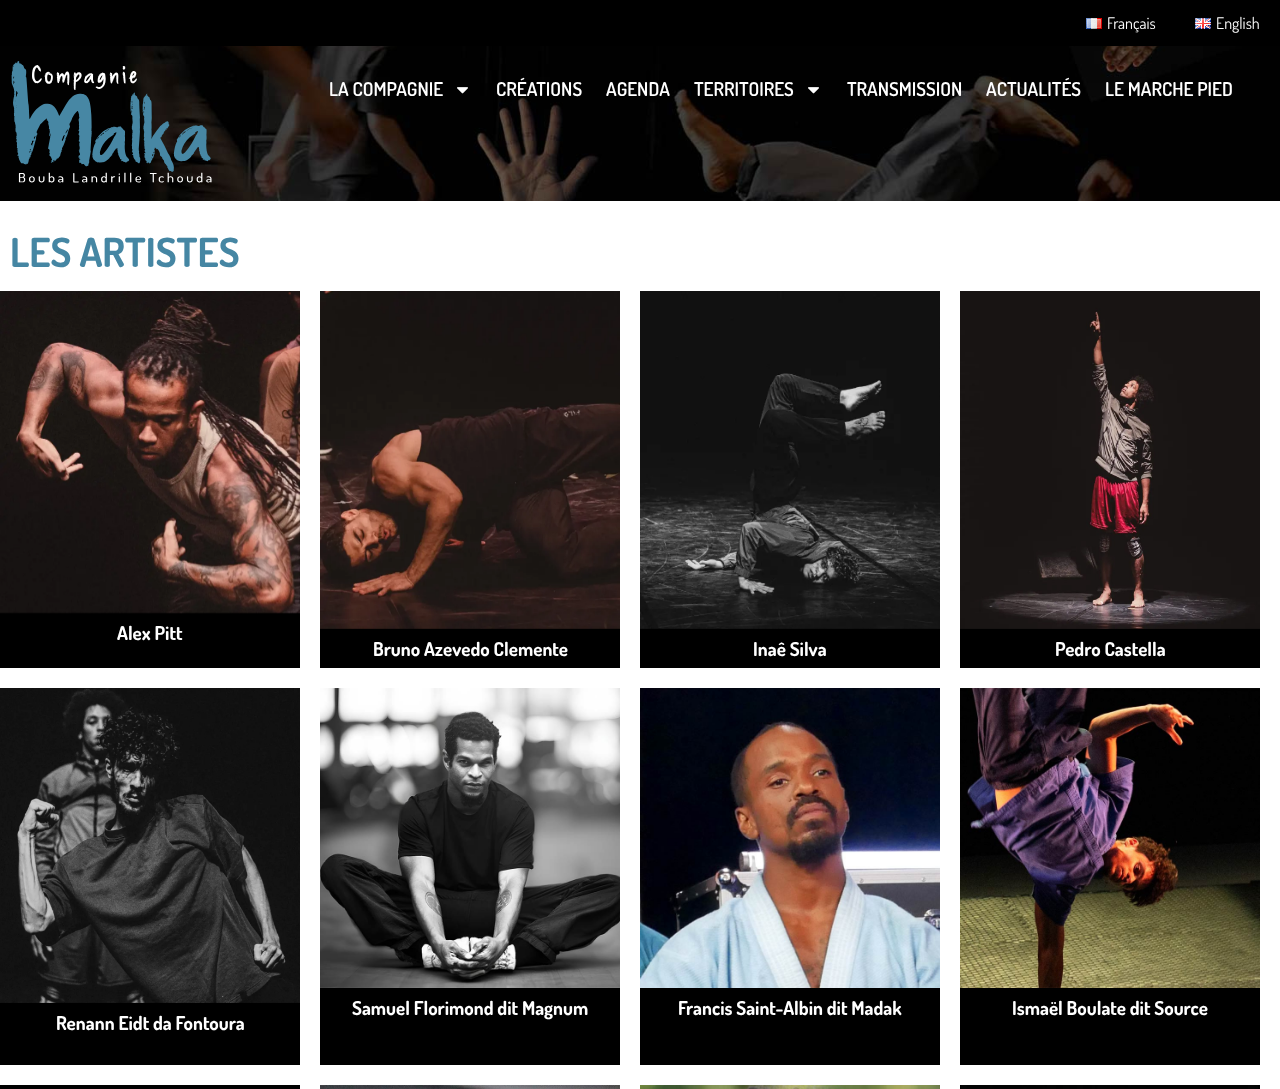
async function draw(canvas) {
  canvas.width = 1280
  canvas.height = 1089
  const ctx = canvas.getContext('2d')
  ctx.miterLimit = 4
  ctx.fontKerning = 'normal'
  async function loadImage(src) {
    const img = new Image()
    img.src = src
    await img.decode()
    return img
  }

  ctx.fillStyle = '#fff'
  ctx.fillRect(0, 0, 1280, 1089)
  ctx.fillStyle = '#000'
  ctx.fillRect(0, 0, 1280, 46)
  ctx.drawImage(await loadImage('image0.png'), 1086, 18, 16, 11)
  ctx.font = '16px Dosis'
  ctx.fillStyle = '#fff'
  ctx.fillText('Français', 1107, 29)
  ctx.drawImage(await loadImage('image1.png'), 1195, 18, 16, 11)
  ctx.fillText('English', 1216, 29)
  ctx.drawImage(await loadImage('image2.png'), 0, 46, 1280, 155)
  ctx.drawImage(await loadImage('image3.png'), 11, 61, 201, 122)
  ctx.font = '600 19px Dosis'
  ctx.fillText('LA COMPAGNIE', 329, 96)
  ctx.drawImage(await loadImage('image4.png'), 457, 87, 11, 7)
  ctx.fillText('CRÉATIONS', 496, 96)
  ctx.fillText('AGENDA', 606, 96)
  ctx.fillText('TERRITOIRES', 694, 96)
  ctx.drawImage(await loadImage('image4.png'), 808, 87, 11, 7)
  ctx.fillText('TRANSMISSION', 847, 96)
  ctx.fillText('ACTUALITÉS', 986, 96)
  ctx.fillText('LE MARCHE PIED', 1105, 96)
  ctx.font = 'bold 40px Dosis'
  ctx.fillStyle = '#4586a3'
  ctx.fillText('LES ARTISTES', 10, 267)
  ctx.fillStyle = '#000'
  ctx.fillRect(0, 291, 300, 377)
  ctx.drawImage(await loadImage('image5.png'), 0, 291, 300, 323)
  ctx.font = 'bold 19px Dosis'
  ctx.fillStyle = '#fff'
  ctx.fillText('Alex Pitt', 117, 640)
  ctx.fillStyle = '#000'
  ctx.fillRect(320, 628, 300, 40)
  ctx.drawImage(await loadImage('image6.png'), 320, 291, 300, 338)
  ctx.fillStyle = '#fff'
  ctx.fillText('Bruno Azevedo Clemente', 373, 656)
  ctx.fillStyle = '#000'
  ctx.fillRect(640, 628, 300, 40)
  ctx.drawImage(await loadImage('image7.png'), 640, 291, 300, 338)
  ctx.fillStyle = '#fff'
  ctx.fillText('Inaê Silva', 753, 656)
  ctx.fillStyle = '#000'
  ctx.fillRect(960, 628, 300, 40)
  ctx.drawImage(await loadImage('image8.png'), 960, 291, 300, 338)
  ctx.fillStyle = '#fff'
  ctx.fillText('Pedro Castella', 1055, 656)
  ctx.fillStyle = '#000'
  ctx.fillRect(320, 988, 300, 77)
  ctx.drawImage(await loadImage('image9.png'), 320, 688, 300, 300)
  ctx.fillStyle = '#fff'
  ctx.fillText('Samuel Florimond dit Magnum', 352, 1015)
  ctx.fillStyle = '#000'
  ctx.fillRect(640, 988, 300, 77)
  ctx.drawImage(await loadImage('image10.png'), 640, 688, 300, 300)
  ctx.fillStyle = '#fff'
  ctx.fillText('Francis Saint-Albin dit Madak', 678, 1015)
  ctx.fillStyle = '#000'
  ctx.fillRect(960, 988, 300, 77)
  ctx.drawImage(await loadImage('image11.png'), 960, 688, 300, 300)
  ctx.fillStyle = '#fff'
  ctx.fillText('Ismaël Boulate dit Source', 1012, 1015)
  ctx.fillStyle = '#000'
  ctx.fillRect(0, 1002, 300, 63)
  ctx.drawImage(await loadImage('image12.png'), 0, 688, 300, 315)
  ctx.fillStyle = '#fff'
  ctx.fillText('Renann Eidt da Fontoura', 56, 1030)
  ctx.fillStyle = '#000'
  ctx.fillRect(0, 1085, 300, 4)
  ctx.drawImage(await loadImage('image13.png'), 320, 1085, 300, 4)
  ctx.drawImage(await loadImage('image14.png'), 640, 1085, 300, 4)
  ctx.fillRect(960, 1085, 300, 4)
  ctx.drawImage(await loadImage('image15.png'), 961, 1085, 297, 4)
}

draw(document.querySelector('canvas'))
